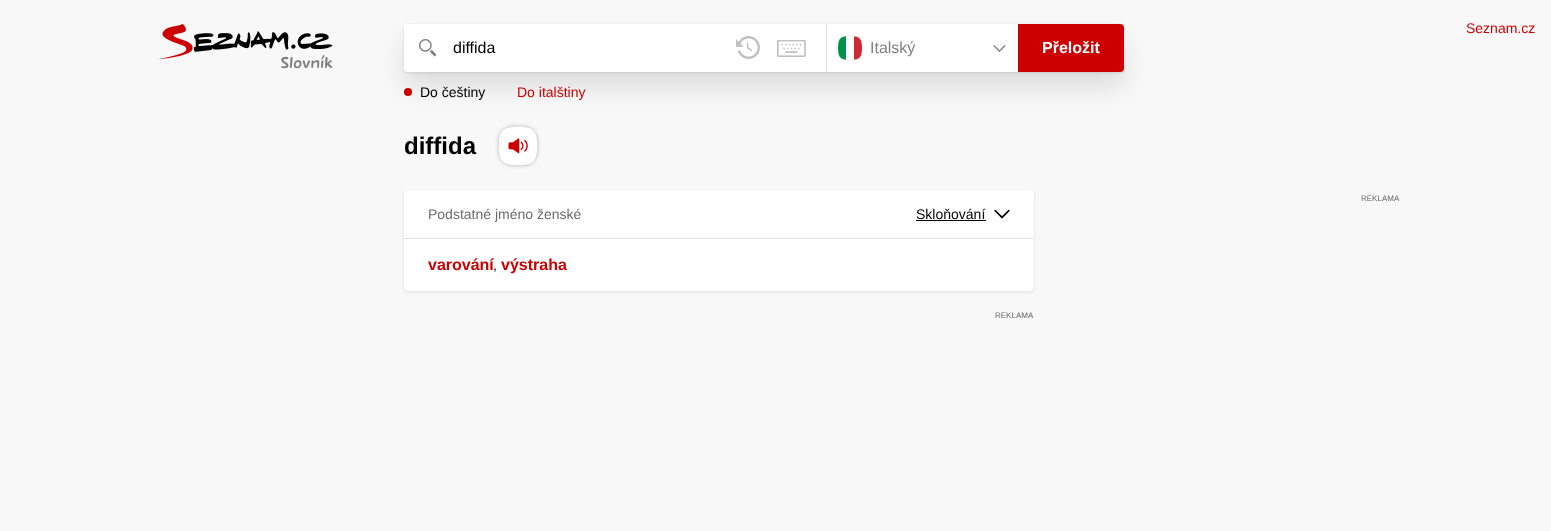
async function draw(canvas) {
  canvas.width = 1551
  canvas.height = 531
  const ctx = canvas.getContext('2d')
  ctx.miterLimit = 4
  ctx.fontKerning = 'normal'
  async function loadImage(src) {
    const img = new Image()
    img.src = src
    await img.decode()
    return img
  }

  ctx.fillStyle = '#f8f8f8'
  ctx.fillRect(0, 0, 1551, 531)
  ctx.drawImage(await loadImage('image0.png'), 159, 24, 174, 45)
  ctx.fillStyle = '#0000001a'
  ctx.filter = 'blur(1.5px)'
  ctx.beginPath()
  ctx.roundRect(404, 25, 720, 48, 4)
  ctx.fill()
  ctx.filter = 'none'
  ctx.filter = 'blur(12px)'
  ctx.beginPath()
  ctx.roundRect(404, 40, 720, 48, 4)
  ctx.fill()
  ctx.filter = 'none'
  ctx.fillStyle = '#fff'
  ctx.beginPath()
  ctx.roundRect(404, 24, 720, 48, 4)
  ctx.fill()
  ctx.beginPath()
  ctx.roundRect(404, 24, 48, 48, 4)
  ctx.fill()
  ctx.drawImage(await loadImage('image1.png'), 419, 39, 17, 18)
  ctx.font = '16px Liberation Sans'
  ctx.fillStyle = '#000'
  ctx.fillText('diffida', 453, 53)
  ctx.drawImage(await loadImage('image2.png'), 736, 36, 24, 23)
  ctx.drawImage(await loadImage('image3.png'), 777, 40, 29, 17)
  ctx.fillStyle = '#e0e0e0'
  ctx.fillRect(826, 24, 1, 48)
  ctx.drawImage(await loadImage('image4.png'), 837, 35, 26, 26)
  ctx.fillStyle = '#808080'
  ctx.fillText('Italský', 870, 53)
  ctx.drawImage(await loadImage('image5.png'), 993, 45, 13, 7)
  ctx.fillStyle = '#c00'
  ctx.beginPath()
  ctx.roundRect(1018, 24, 106, 48, [0, 4, 4, 0])
  ctx.fill()
  ctx.font = 'bold 16px Liberation Sans'
  ctx.fillStyle = '#fff'
  ctx.fillText('Přeložit', 1042, 53)
  ctx.fillStyle = '#c00'
  ctx.beginPath()
  ctx.arc(408, 92, 4, 0, 2 * Math.PI)
  ctx.fill()
  ctx.font = '14px Liberation Sans'
  ctx.fillStyle = '#000'
  ctx.fillText('Do češtiny', 420, 97)
  ctx.fillStyle = '#c00'
  ctx.fillText('Do italštiny', 517, 97)
  ctx.fillText('Seznam.cz', 1466, 33)
  ctx.font = 'bold 24px Liberation Sans'
  ctx.fillStyle = '#000'
  ctx.fillText('diffida', 404, 154)
  ctx.fillStyle = '#808080'
  ctx.filter = 'blur(2.5px)'
  ctx.beginPath()
  ctx.roundRect(500, 128, 36, 36, 13)
  ctx.fill()
  ctx.filter = 'none'
  ctx.drawImage(await loadImage('image6.png'), 498, 126, 40, 40)
  ctx.font = '8px Liberation Sans'
  ctx.fillStyle = '#666'
  ctx.fillText('REKLAMA', 1361, 201)
  ctx.fillStyle = '#0000001a'
  ctx.filter = 'blur(1.5px)'
  ctx.beginPath()
  ctx.roundRect(404, 191, 630, 101, 4)
  ctx.fill()
  ctx.filter = 'none'
  ctx.fillStyle = '#fff'
  ctx.beginPath()
  ctx.roundRect(404, 190, 630, 101, 4)
  ctx.fill()
  ctx.fillStyle = '#e0e0e0'
  ctx.fillRect(404, 238, 630, 1)
  ctx.font = '14px Liberation Sans'
  ctx.fillStyle = '#6d6d6d'
  ctx.fillText('Podstatné jméno ženské', 428, 219)
  ctx.fillStyle = '#000'
  ctx.fillText('Skloňování', 916, 219)
  ctx.fillRect(916, 220, 70, 1)
  ctx.drawImage(await loadImage('image7.png'), 994, 209, 16, 10)
  ctx.font = 'bold 16px Liberation Sans'
  ctx.fillStyle = '#c00'
  ctx.fillText('varování', 428, 270)
  ctx.font = '14px Liberation Sans'
  ctx.fillStyle = '#000'
  ctx.fillText(',', 493, 270)
  ctx.font = 'bold 16px Liberation Sans'
  ctx.fillStyle = '#c00'
  ctx.fillText('výstraha', 501, 270)
  ctx.font = '8px Liberation Sans'
  ctx.fillStyle = '#666'
  ctx.fillText('REKLAMA', 995, 318)
}

draw(document.querySelector('canvas'))
